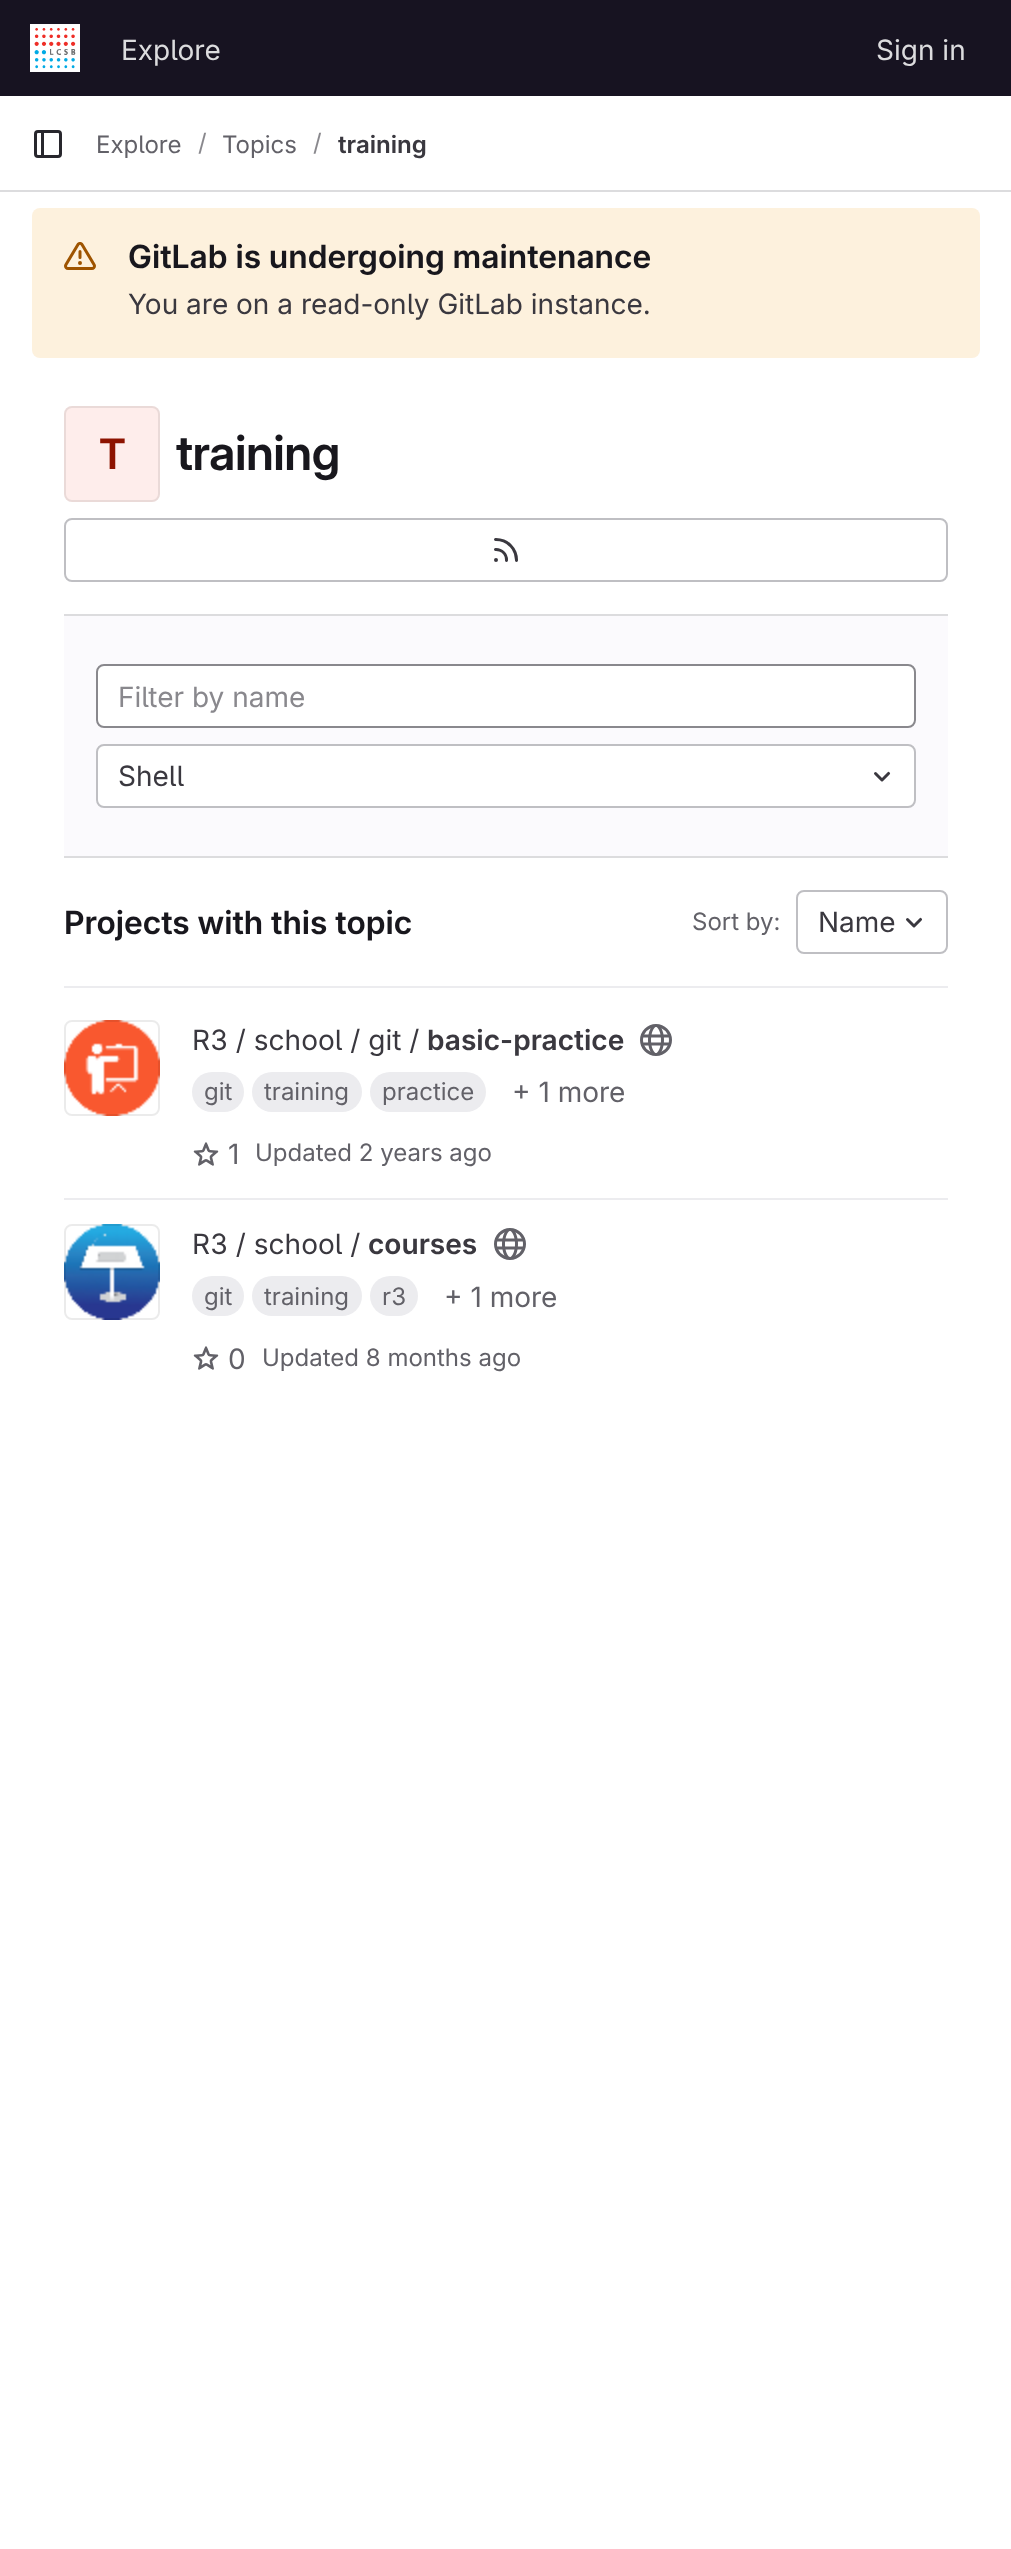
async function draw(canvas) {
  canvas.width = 1011
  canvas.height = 2549
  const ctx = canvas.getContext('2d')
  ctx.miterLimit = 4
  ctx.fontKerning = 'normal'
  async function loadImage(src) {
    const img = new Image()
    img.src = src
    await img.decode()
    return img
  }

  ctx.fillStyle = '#fff'
  ctx.fillRect(0, 0, 1011, 2549)
  ctx.fillStyle = '#171321'
  ctx.fillRect(0, 0, 1011, 96)
  ctx.drawImage(await loadImage('image0.png'), 30, 24, 50, 48)
  ctx.font = '28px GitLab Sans'
  ctx.fillStyle = '#dcdcde'
  ctx.fillText('Explore', 121, 60)
  ctx.fillText('Sign in', 876, 60)
  ctx.fillRect(0, 190, 1011, 2)
  ctx.drawImage(await loadImage('image1.png'), 34, 130, 28, 28)
  ctx.font = '24px GitLab Sans'
  ctx.fillStyle = '#626168'
  ctx.fillText('Explore', 96, 153)
  ctx.fillStyle = '#89888d'
  ctx.fillText('/', 198, 151)
  ctx.fillStyle = '#626168'
  ctx.fillText('Topics', 222, 153)
  ctx.fillStyle = '#89888d'
  ctx.fillText('/', 313, 151)
  ctx.font = '600 24px "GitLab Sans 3"'
  ctx.fillStyle = '#3a383f'
  ctx.fillText('training', 338, 153)
  ctx.fillStyle = '#fdf1dd'
  ctx.beginPath()
  ctx.roundRect(32, 208, 948, 150, 8)
  ctx.fill()
  ctx.drawImage(await loadImage('image2.png'), 64, 242, 32, 28)
  ctx.font = '600 32px "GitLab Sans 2"'
  ctx.fillStyle = '#18171d'
  ctx.fillText('GitLab is undergoing maintenance', 128, 268)
  ctx.font = '28px GitLab Sans'
  ctx.fillStyle = '#3a383f'
  ctx.fillText('You are on a read-only GitLab instance.', 128, 314)
  ctx.fillStyle = '#feedeb'
  ctx.beginPath()
  ctx.roundRect(64, 406, 96, 96, 8)
  ctx.fill()
  ctx.beginPath()
  ctx.roundRect(65, 407, 94, 94, 7)
  ctx.strokeStyle = '#05050614'
  ctx.lineWidth = 2
  ctx.stroke()
  ctx.letterSpacing = '-0.5px'
  ctx.font = '600 42px "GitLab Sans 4"'
  ctx.fillStyle = '#8d1300'
  ctx.fillText('T', 99, 469)
  ctx.font = '600 48px GitLab Sans'
  ctx.fillStyle = '#18171d'
  ctx.fillText('training', 176, 470)
  ctx.beginPath()
  ctx.roundRect(65, 519, 882, 62, 7)
  ctx.strokeStyle = '#bfbfc3'
  ctx.stroke()
  ctx.drawImage(await loadImage('image3.png'), 494, 538, 24, 24)
  ctx.fillStyle = '#fbfafd'
  ctx.fillRect(64, 616, 884, 240)
  ctx.fillStyle = '#dcdcde'
  ctx.fillRect(64, 614, 884, 2)
  ctx.fillRect(64, 856, 884, 2)
  ctx.fillStyle = '#fff'
  ctx.beginPath()
  ctx.roundRect(97, 665, 818, 62, 7)
  ctx.fill()
  ctx.strokeStyle = '#89888d'
  ctx.stroke()
  ctx.letterSpacing = '0px'
  ctx.font = '28px GitLab Sans'
  ctx.fillStyle = '#89888d'
  ctx.fillText('Filter by name', 118, 707)
  ctx.fillStyle = '#fff'
  ctx.beginPath()
  ctx.roundRect(97, 745, 818, 62, 7)
  ctx.fill()
  ctx.strokeStyle = '#bfbfc3'
  ctx.stroke()
  ctx.fillStyle = '#3a383f'
  ctx.fillText('Shell', 118, 786)
  ctx.drawImage(await loadImage('image4.png'), 874, 771, 17, 11)
  ctx.fillStyle = '#ececef'
  ctx.fillRect(64, 986, 884, 2)
  ctx.font = '600 32px "GitLab Sans 2"'
  ctx.fillStyle = '#18171d'
  ctx.fillText('Projects with this topic', 64, 934)
  ctx.font = '24px GitLab Sans'
  ctx.fillStyle = '#626168'
  ctx.fillText('Sort by:', 692, 930)
  ctx.beginPath()
  ctx.roundRect(797, 891, 150, 62, 7)
  ctx.stroke()
  ctx.font = '28px GitLab Sans'
  ctx.fillStyle = '#3a383f'
  ctx.fillText('Name', 818, 932)
  ctx.drawImage(await loadImage('image5.png'), 906, 917, 16, 11)
  ctx.fillStyle = '#ececef'
  ctx.fillRect(64, 1198, 884, 2)
  ctx.drawImage(await loadImage('image6.png'), 64, 1020, 96, 96)
  ctx.beginPath()
  ctx.roundRect(65, 1021, 94, 94, 7)
  ctx.strokeStyle = '#05050614'
  ctx.stroke()
  ctx.fillStyle = '#3a383f'
  ctx.fillText('R3 / school / git /', 192, 1050)
  ctx.font = '600 28px "GitLab Sans 3"'
  ctx.fillText('basic-practice', 427, 1050)
  ctx.drawImage(await loadImage('image7.png'), 640, 1024, 32, 32)
  ctx.fillStyle = '#ececef'
  ctx.beginPath()
  ctx.roundRect(192, 1072, 52, 40, 20)
  ctx.fill()
  ctx.font = '24px GitLab Sans'
  ctx.fillStyle = '#626168'
  ctx.fillText('git', 204, 1100)
  ctx.fillStyle = '#ececef'
  ctx.beginPath()
  ctx.roundRect(252, 1072, 110, 40, 20)
  ctx.fill()
  ctx.fillStyle = '#626168'
  ctx.fillText('training', 264, 1100)
  ctx.fillStyle = '#ececef'
  ctx.beginPath()
  ctx.roundRect(370, 1072, 116, 40, 20)
  ctx.fill()
  ctx.fillStyle = '#626168'
  ctx.fillText('practice', 382, 1100)
  ctx.font = '28px GitLab Sans'
  ctx.fillText('+ 1 more', 512, 1102)
  ctx.drawImage(await loadImage('image8.png'), 193, 1142, 26, 24)
  ctx.fillText('1', 228, 1164)
  ctx.font = '24px GitLab Sans'
  ctx.fillText('Updated 2 years ago', 255, 1161)
  ctx.drawImage(await loadImage('image9.png'), 64, 1224, 96, 96)
  ctx.beginPath()
  ctx.roundRect(65, 1225, 94, 94, 7)
  ctx.stroke()
  ctx.font = '28px GitLab Sans'
  ctx.fillStyle = '#3a383f'
  ctx.fillText('R3 / school /', 192, 1254)
  ctx.font = '600 28px "GitLab Sans 3"'
  ctx.fillText('courses', 368, 1254)
  ctx.drawImage(await loadImage('image10.png'), 494, 1228, 32, 32)
  ctx.fillStyle = '#ececef'
  ctx.beginPath()
  ctx.roundRect(192, 1276, 52, 40, 20)
  ctx.fill()
  ctx.font = '24px GitLab Sans'
  ctx.fillStyle = '#626168'
  ctx.fillText('git', 204, 1305)
  ctx.fillStyle = '#ececef'
  ctx.beginPath()
  ctx.roundRect(252, 1276, 110, 40, 20)
  ctx.fill()
  ctx.fillStyle = '#626168'
  ctx.fillText('training', 264, 1305)
  ctx.fillStyle = '#ececef'
  ctx.beginPath()
  ctx.roundRect(370, 1276, 48, 40, 20)
  ctx.fill()
  ctx.fillStyle = '#626168'
  ctx.fillText('r3', 382, 1305)
  ctx.font = '28px GitLab Sans'
  ctx.fillText('+ 1 more', 444, 1307)
  ctx.drawImage(await loadImage('image8.png'), 193, 1346, 26, 24)
  ctx.fillText('0', 228, 1369)
  ctx.font = '24px GitLab Sans'
  ctx.fillText('Updated 8 months ago', 262, 1366)
}

draw(document.querySelector('canvas'))
